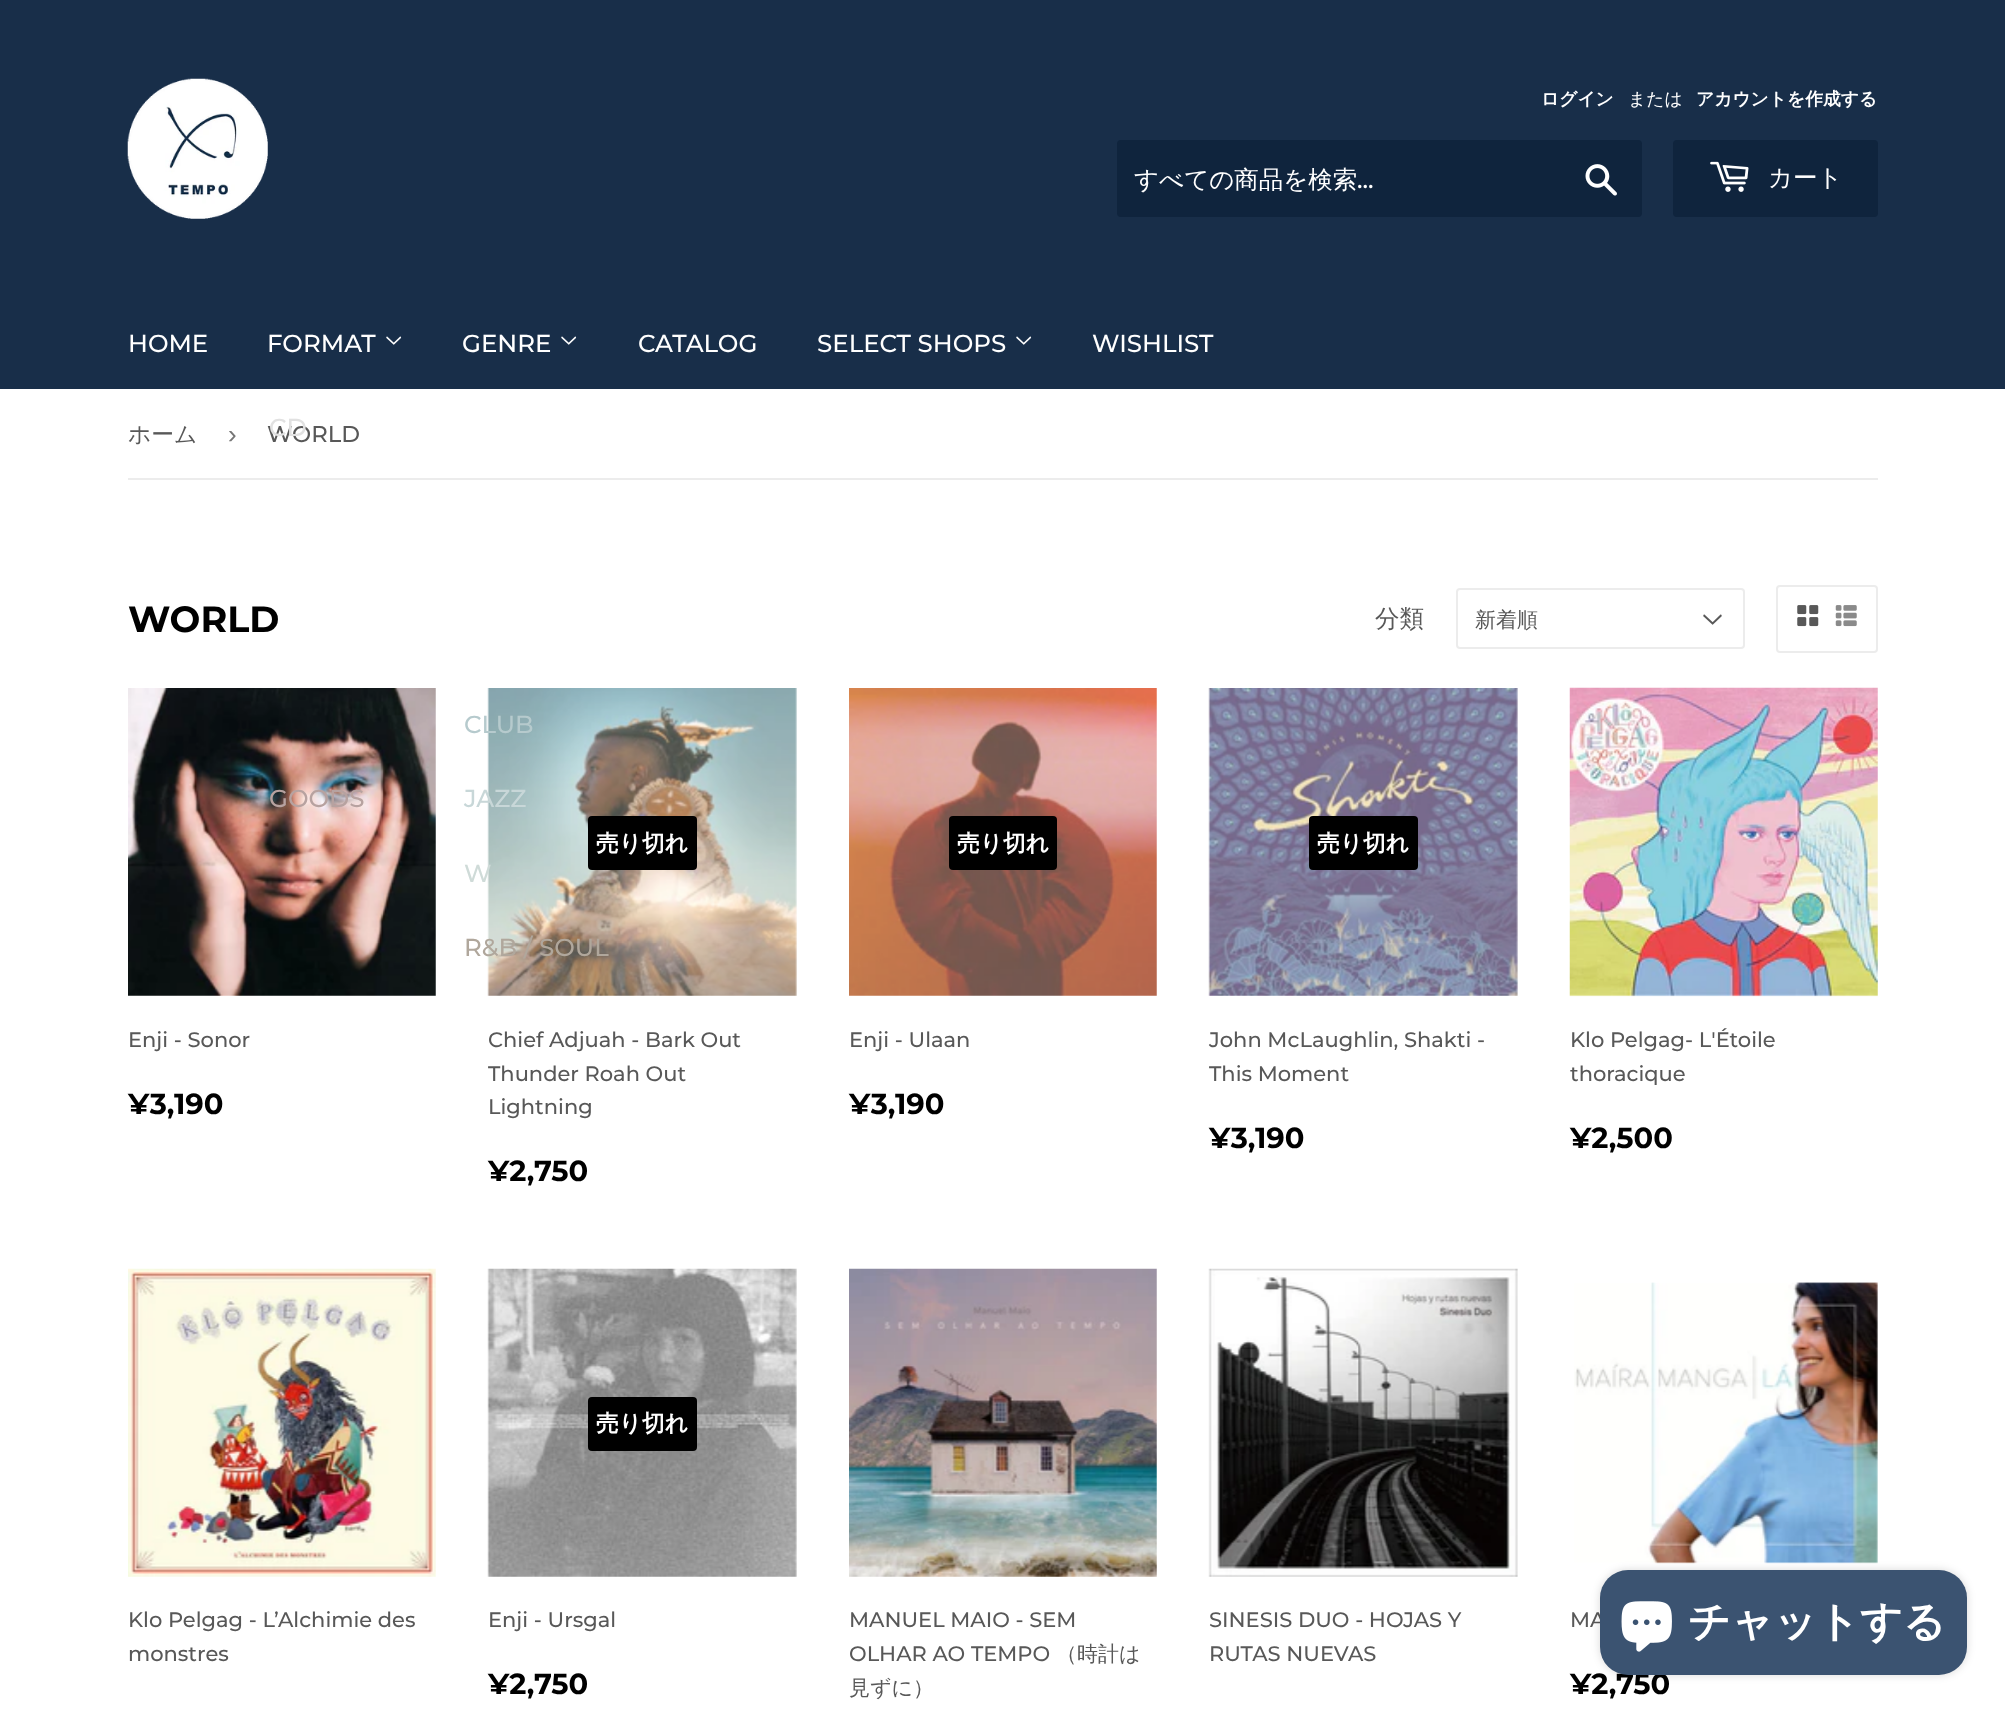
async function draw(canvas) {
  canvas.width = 2005
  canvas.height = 1710
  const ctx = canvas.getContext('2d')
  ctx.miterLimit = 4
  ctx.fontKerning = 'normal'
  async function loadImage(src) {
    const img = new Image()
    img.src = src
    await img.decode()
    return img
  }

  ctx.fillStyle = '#fff'
  ctx.fillRect(0, 0, 2005, 1710)
  ctx.fillStyle = '#182e49'
  ctx.fillRect(0, 0, 2005, 389)
  ctx.drawImage(await loadImage('image0.png'), 127, 78, 141, 141)
  ctx.font = 'bold 17.8px WenQuanYi Zen Hei'
  ctx.fillStyle = '#fff'
  ctx.fillText('ログイン', 1541, 105)
  ctx.font = '500 17.8px WenQuanYi Zen Hei'
  ctx.fillText('または', 1628, 105)
  ctx.font = 'bold 17.8px WenQuanYi Zen Hei'
  ctx.fillText('アカウントを作成する', 1696, 105)
  ctx.fillStyle = '#0f243d'
  ctx.beginPath()
  ctx.roundRect(1117, 140, 525, 77, 4)
  ctx.fill()
  ctx.font = '500 24.5px WenQuanYi Zen Hei'
  ctx.fillStyle = '#fff'
  ctx.fillText('すべての商品を検索', 1134, 188)
  ctx.font = '500 24.5px Montserrat'
  ctx.fillText('...', 1357, 188)
  ctx.drawImage(await loadImage('image1.png'), 1585, 164, 32, 32)
  ctx.fillStyle = '#0f243d'
  ctx.beginPath()
  ctx.roundRect(1673, 140, 205, 77, 4)
  ctx.fill()
  ctx.drawImage(await loadImage('image2.png'), 1710, 161, 39, 31)
  ctx.font = '500 24.5px WenQuanYi Zen Hei'
  ctx.fillStyle = '#fff'
  ctx.fillText('カート', 1768, 186)
  ctx.font = '500 24.5px Montserrat'
  ctx.fillText('HOME', 128, 352)
  ctx.fillText('FORMAT', 267, 352)
  ctx.drawImage(await loadImage('image3.png'), 386, 336, 16, 9)
  ctx.font = '500 22.75px Montserrat'
  ctx.fillStyle = '#585858'
  ctx.fillText('WORLD', 267, 442)
  ctx.font = '500 24.5px Montserrat'
  ctx.fillStyle = '#e1e1e1'
  ctx.fillText('CD', 269, 436)
  ctx.drawImage(await loadImage('image7.png'), 128, 688, 308, 308)
  ctx.fillStyle = '#b7a2a0'
  ctx.fillText('GOODS', 269, 807)
  ctx.fillStyle = '#fff'
  ctx.fillText('GENRE', 462, 352)
  ctx.drawImage(await loadImage('image3.png'), 561, 336, 16, 9)
  ctx.drawImage(await loadImage('image8.png'), 487, 688, 310, 308)
  ctx.fillStyle = '#b6cacd'
  ctx.fillText('CLUB', 464, 733)
  ctx.fillStyle = '#c8d7d8'
  ctx.fillText('JAZZ', 464, 807)
  ctx.fillStyle = '#cfdbd8'
  ctx.fillText('W', 464, 882)
  ctx.fillStyle = '#b0a79c'
  ctx.fillText('R&B / SOUL', 464, 956)
  ctx.fillStyle = '#fff'
  ctx.fillText('CATALOG', 638, 352)
  ctx.fillText('SELECT SHOPS', 817, 352)
  ctx.drawImage(await loadImage('image3.png'), 1016, 336, 16, 9)
  ctx.fillText('WISHLIST', 1092, 352)
  ctx.fillStyle = '#ececec'
  ctx.fillRect(128, 478, 1750, 2)
  ctx.font = '500 22.75px WenQuanYi Zen Hei'
  ctx.fillStyle = '#585858'
  ctx.fillText('ホーム', 128, 442)
  ctx.font = '26px Liberation Sans'
  ctx.fillStyle = '#767676'
  ctx.fillText('›', 228, 443)
  ctx.font = 'bold 36.5px Montserrat'
  ctx.fillStyle = '#000'
  ctx.fillText('WORLD', 128, 632)
  ctx.font = '500 24.5px WenQuanYi Zen Hei'
  ctx.fillStyle = '#585858'
  ctx.fillText('分類', 1375, 627)
  ctx.drawImage(await loadImage('image4.png'), 1703, 614, 19, 11)
  ctx.beginPath()
  ctx.roundRect(1457, 589, 287, 59, 3)
  ctx.strokeStyle = '#ececec'
  ctx.lineWidth = 2
  ctx.stroke()
  ctx.font = '500 21px WenQuanYi Zen Hei'
  ctx.fillText('新着順', 1475, 627)
  ctx.beginPath()
  ctx.roundRect(1777, 586, 100, 66, 3)
  ctx.stroke()
  ctx.drawImage(await loadImage('image5.png'), 1797, 605, 22, 22)
  ctx.drawImage(await loadImage('image6.png'), 1835, 605, 22, 22)
  ctx.font = '500 21px Montserrat'
  ctx.fillText('Enji - Sonor', 128, 1047)
  ctx.font = 'bold 29px Montserrat'
  ctx.fillStyle = '#000'
  ctx.fillText('¥3,190', 128, 1114)
  ctx.beginPath()
  ctx.roundRect(588, 816, 109, 54, 4)
  ctx.fill()
  ctx.font = 'bold 22.75px WenQuanYi Zen Hei'
  ctx.fillStyle = '#fff'
  ctx.fillText('売り切れ', 596, 851)
  ctx.font = '500 21px Montserrat'
  ctx.fillStyle = '#585858'
  ctx.fillText('Chief Adjuah - Bark Out', 488, 1047)
  ctx.fillText('Thunder Roah Out', 488, 1081)
  ctx.fillText('Lightning', 488, 1114)
  ctx.font = 'bold 29px Montserrat'
  ctx.fillStyle = '#000'
  ctx.fillText('¥2,750', 488, 1181)
  ctx.drawImage(await loadImage('image9.png'), 849, 688, 308, 308)
  ctx.beginPath()
  ctx.roundRect(949, 816, 108, 54, 4)
  ctx.fill()
  ctx.font = 'bold 22.75px WenQuanYi Zen Hei'
  ctx.fillStyle = '#fff'
  ctx.fillText('売り切れ', 957, 851)
  ctx.font = '500 21px Montserrat'
  ctx.fillStyle = '#585858'
  ctx.fillText('Enji - Ulaan', 849, 1047)
  ctx.font = 'bold 29px Montserrat'
  ctx.fillStyle = '#000'
  ctx.fillText('¥3,190', 849, 1114)
  ctx.drawImage(await loadImage('image10.png'), 1208, 688, 310, 308)
  ctx.beginPath()
  ctx.roundRect(1309, 816, 109, 54, 4)
  ctx.fill()
  ctx.font = 'bold 22.75px WenQuanYi Zen Hei'
  ctx.fillStyle = '#fff'
  ctx.fillText('売り切れ', 1317, 851)
  ctx.font = '500 21px Montserrat'
  ctx.fillStyle = '#585858'
  ctx.fillText('John McLaughlin, Shakti -', 1209, 1047)
  ctx.fillText('This Moment', 1209, 1081)
  ctx.font = 'bold 29px Montserrat'
  ctx.fillStyle = '#000'
  ctx.fillText('¥3,190', 1209, 1148)
  ctx.drawImage(await loadImage('image11.png'), 1569, 687, 309, 310)
  ctx.font = '500 21px Montserrat'
  ctx.fillStyle = '#585858'
  ctx.fillText('Klo Pelgag- L\'Étoile', 1570, 1047)
  ctx.fillText('thoracique', 1570, 1081)
  ctx.font = 'bold 29px Montserrat'
  ctx.fillStyle = '#000'
  ctx.fillText('¥2,500', 1570, 1148)
  ctx.drawImage(await loadImage('image12.png'), 128, 1268, 308, 309)
  ctx.font = '500 21px Montserrat'
  ctx.fillStyle = '#585858'
  ctx.fillText('Klo Pelgag - L’Alchimie des', 128, 1627)
  ctx.fillText('monstres', 128, 1661)
  ctx.drawImage(await loadImage('image13.png'), 487, 1268, 310, 309)
  ctx.fillStyle = '#000'
  ctx.beginPath()
  ctx.roundRect(588, 1397, 109, 54, 4)
  ctx.fill()
  ctx.font = 'bold 22.75px WenQuanYi Zen Hei'
  ctx.fillStyle = '#fff'
  ctx.fillText('売り切れ', 596, 1431)
  ctx.font = '500 21px Montserrat'
  ctx.fillStyle = '#585858'
  ctx.fillText('Enji - Ursgal', 488, 1627)
  ctx.font = 'bold 29px Montserrat'
  ctx.fillStyle = '#000'
  ctx.fillText('¥2,750', 488, 1694)
  ctx.drawImage(await loadImage('image14.png'), 849, 1268, 308, 309)
  ctx.font = '500 21px Montserrat'
  ctx.fillStyle = '#585858'
  ctx.fillText('MANUEL MAIO - SEM', 849, 1627)
  ctx.fillText('OLHAR AO TEMPO', 849, 1661)
  ctx.font = '500 21px WenQuanYi Zen Hei'
  ctx.fillText('（時計は', 1056, 1661)
  ctx.fillText('見ずに）', 849, 1695)
  ctx.drawImage(await loadImage('image15.png'), 1208, 1268, 310, 309)
  ctx.font = '500 21px Montserrat'
  ctx.fillText('SINESIS DUO - HOJAS Y', 1209, 1627)
  ctx.fillText('RUTAS NUEVAS', 1209, 1661)
  ctx.drawImage(await loadImage('image16.png'), 1574, 1282, 304, 282)
  ctx.fillText('MA', 1570, 1627)
  ctx.font = 'bold 29px Montserrat'
  ctx.fillStyle = '#000'
  ctx.fillText('¥2,750', 1570, 1694)
  ctx.fillStyle = '#00000026'
  ctx.filter = 'blur(4.5px)'
  ctx.beginPath()
  ctx.roundRect(1600, 1570, 367, 105, 28)
  ctx.fill()
  ctx.filter = 'none'
  ctx.fillStyle = '#3b5371'
  ctx.beginPath()
  ctx.roundRect(1600, 1570, 367, 105, 28)
  ctx.fill()
  ctx.drawImage(await loadImage('image17.png'), 1621, 1601, 51, 51)
  ctx.font = 'bold 42px WenQuanYi Zen Hei'
  ctx.fillStyle = '#fff'
  ctx.fillText('チャットする', 1688, 1636)
}

draw(document.querySelector('canvas'))
